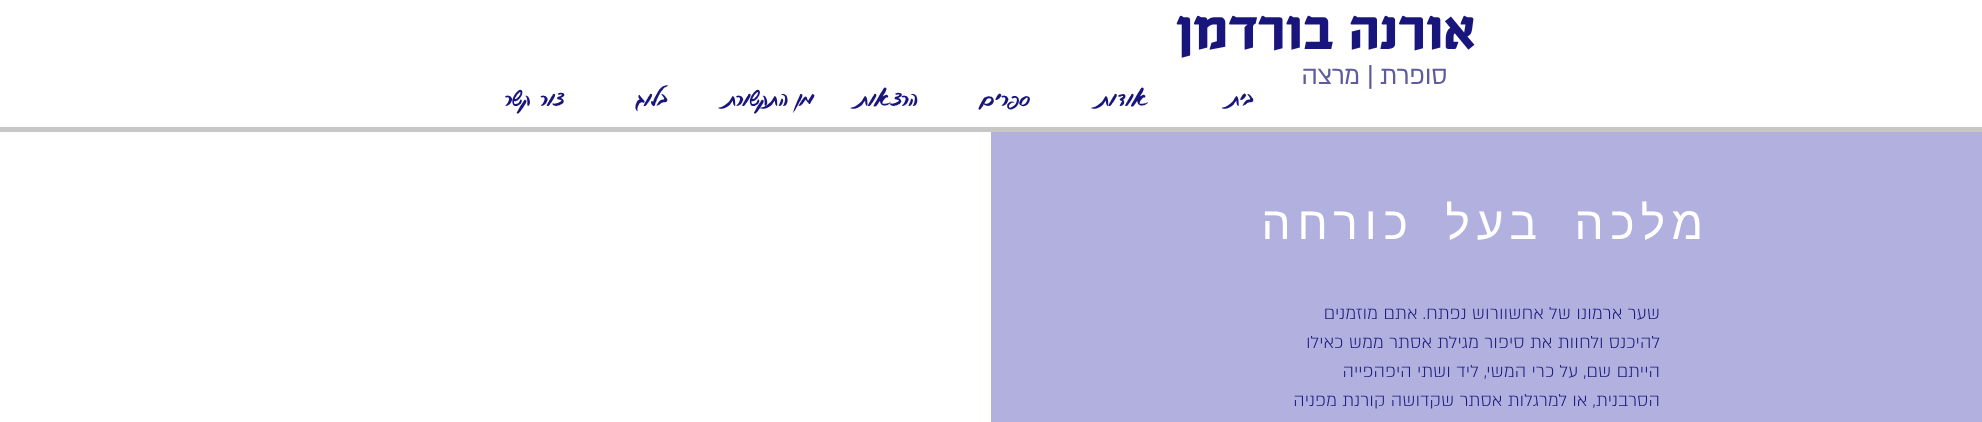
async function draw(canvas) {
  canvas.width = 1982
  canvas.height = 422
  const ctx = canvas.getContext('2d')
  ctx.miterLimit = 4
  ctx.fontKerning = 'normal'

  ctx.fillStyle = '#fff'
  ctx.fillRect(0, 0, 1982, 422)
  ctx.direction = 'rtl'
  ctx.font = 'bold 61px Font'
  ctx.fillStyle = '#18157c'
  ctx.fillText('אורנה בורדמן', 1476, 49)
  ctx.font = 'bold 28px "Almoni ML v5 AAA"'
  ctx.fillStyle = '#5e5c9d'
  ctx.fillText('סופרת | מרצה', 1447, 84)
  ctx.font = '500 34px Font'
  ctx.fillStyle = '#18157c'
  ctx.fillText('בית', 1254, 106)
  ctx.fillText('אודות', 1148, 106)
  ctx.fillText('ספרים', 1030, 106)
  ctx.fillText('הרצאות', 918, 106)
  ctx.fillText('מן התקשורת', 813, 106)
  ctx.fillText('בלוג', 668, 106)
  ctx.fillText('צור קשר', 564, 106)
  ctx.fillStyle = '#c7c7c7'
  ctx.fillRect(0, 127, 1982, 5)
  ctx.fillStyle = '#b1b0de'
  ctx.fillRect(991, 132, 991, 290)
  ctx.letterSpacing = '6.9px'
  ctx.wordSpacing = '11px'
  ctx.font = '46px Liberation Sans'
  ctx.fillStyle = '#fff'
  ctx.fillText('מלכה בעל כורחה', 1710, 239)
  ctx.letterSpacing = '0px'
  ctx.wordSpacing = '0px'
  ctx.font = '300 20px "Almoni ML v5 AAA"'
  ctx.fillStyle = '#18157c'
  ctx.fillText('שער ארמונו של אחשוורוש נפתח. אתם מוזמנים', 1660, 319)
  ctx.fillText('להיכנס ולחוות את סיפור מגילת אסתר ממש כאילו', 1660, 348)
  ctx.fillText('הייתם שם, על כרי המשי, ליד ושתי היפהפייה', 1660, 377)
  ctx.fillText('הסרבנית, או למרגלות אסתר שקדושה קורנת מפניה', 1660, 406)
}

draw(document.querySelector('canvas'))
